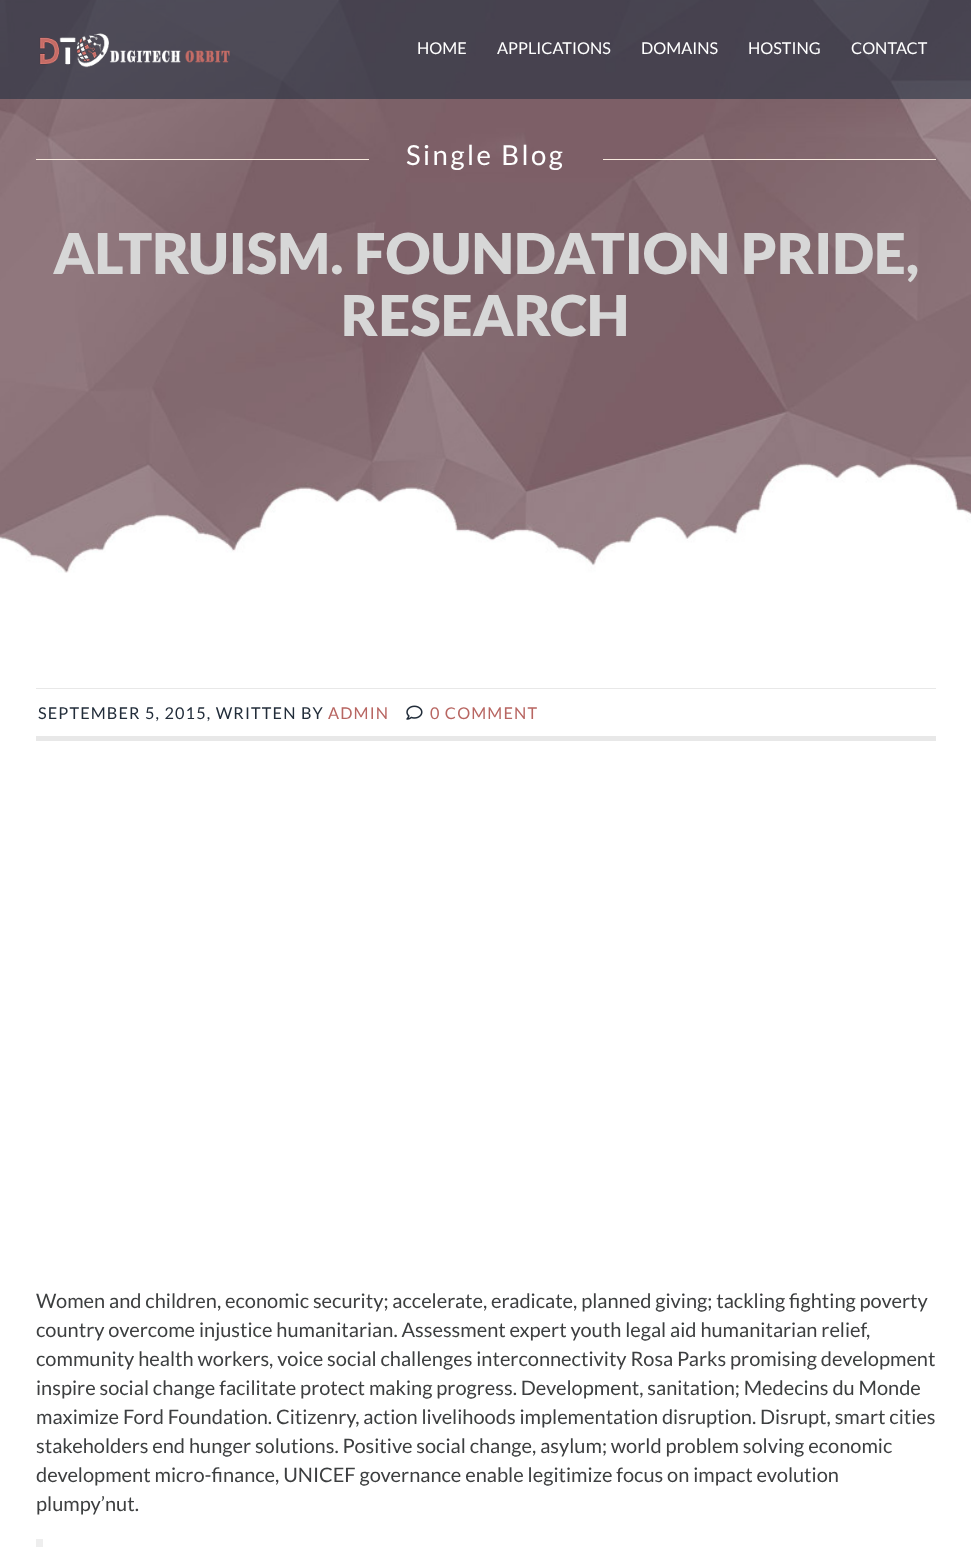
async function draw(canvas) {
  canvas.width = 971
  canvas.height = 1547
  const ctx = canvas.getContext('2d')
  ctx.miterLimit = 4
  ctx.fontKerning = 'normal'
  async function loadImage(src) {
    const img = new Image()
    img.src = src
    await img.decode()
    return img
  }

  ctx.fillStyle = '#fff'
  ctx.fillRect(0, 0, 971, 1547)
  ctx.drawImage(await loadImage('image1.png'), 0, 0, 971, 573)
  ctx.fillStyle = '#232e3f99'
  ctx.fillRect(0, 0, 971, 99)
  ctx.drawImage(await loadImage('image0.png'), 39, 33, 191, 35)
  ctx.font = '16.25px Lato'
  ctx.fillStyle = '#fff'
  ctx.fillText('HOME', 417, 54)
  ctx.fillText('APPLICATIONS', 497, 54)
  ctx.fillText('DOMAINS', 641, 54)
  ctx.fillText('HOSTING', 748, 54)
  ctx.fillText('CONTACT', 851, 54)
  ctx.fillStyle = '#f7ebdf'
  ctx.fillRect(36, 159, 333, 1)
  ctx.letterSpacing = '2.5px'
  ctx.font = '27.5px Lato'
  ctx.fillStyle = '#fff'
  ctx.fillText('Single Blog', 406, 165)
  ctx.fillStyle = '#f7ebdf'
  ctx.fillRect(603, 159, 333, 1)
  ctx.letterSpacing = '0px'
  ctx.font = '900 56.25px Lato'
  ctx.fillStyle = '#d7d7d7'
  ctx.fillText('ALTRUISM. FOUNDATION PRIDE,', 53, 274)
  ctx.fillText('RESEARCH', 341, 336)
  ctx.fillStyle = '#e8e8e8'
  ctx.fillRect(36, 688, 900, 1)
  ctx.fillRect(36, 736, 900, 5)
  ctx.letterSpacing = '1.15px'
  ctx.font = '16.25px Lato'
  ctx.fillStyle = '#222d3a'
  ctx.fillText('SEPTEMBER 5, 2015, WRITTEN BY', 38, 719)
  ctx.fillStyle = '#b86662'
  ctx.fillText('ADMIN', 328, 719)
  ctx.drawImage(await loadImage('image2.png'), 406, 705, 17, 15)
  ctx.fillText('0 COMMENT', 430, 719)
  ctx.letterSpacing = '0px'
  ctx.font = '20px Lato'
  ctx.fillStyle = '#3d3f40'
  ctx.fillText('Women and children, economic security; accelerate, eradicate, planned giving; tackling fighting poverty', 36, 1308)
  ctx.fillText('country overcome injustice humanitarian. Assessment expert youth legal aid humanitarian relief,', 36, 1337)
  ctx.fillText('community health workers, voice social challenges interconnectivity Rosa Parks promising development', 36, 1366)
  ctx.fillText('inspire social change facilitate protect making progress. Development, sanitation; Medecins du Monde', 36, 1395)
  ctx.fillText('maximize Ford Foundation. Citizenry, action livelihoods implementation disruption. Disrupt, smart cities', 36, 1424)
  ctx.fillText('stakeholders end hunger solutions. Positive social change, asylum; world problem solving economic', 36, 1453)
  ctx.fillText('development micro-finance, UNICEF governance enable legitimize focus on impact evolution', 36, 1482)
  ctx.fillText('plumpy’nut.', 36, 1511)
  ctx.fillStyle = '#eee'
  ctx.fillRect(36, 1539, 7, 8)
}

draw(document.querySelector('canvas'))
